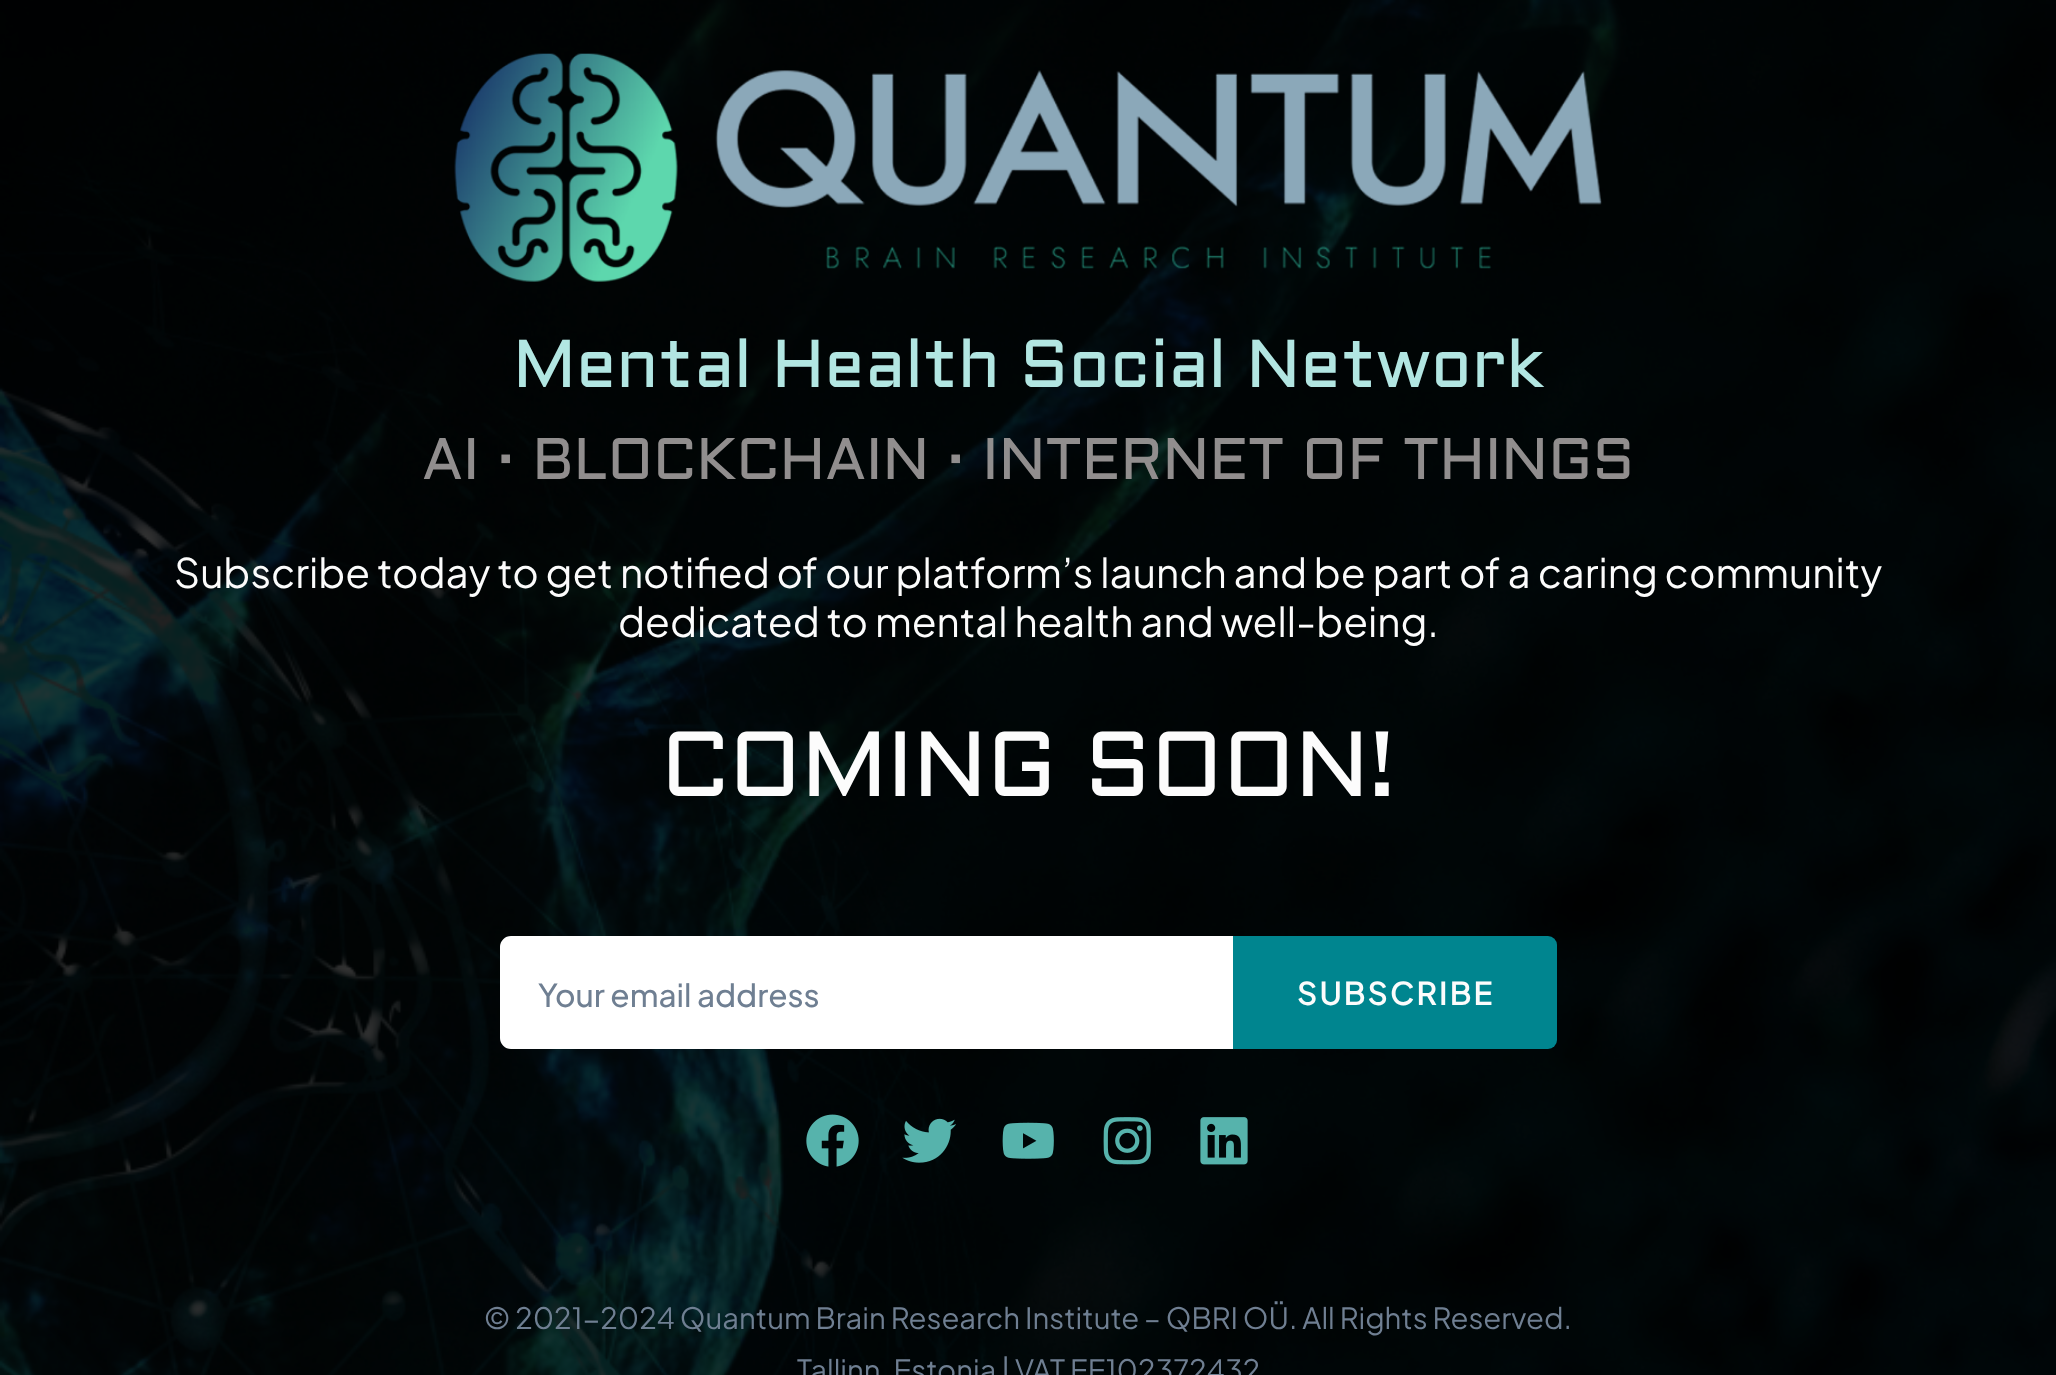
async function draw(canvas) {
  canvas.width = 2056
  canvas.height = 1375
  const ctx = canvas.getContext('2d')
  ctx.miterLimit = 4
  ctx.fontKerning = 'normal'
  async function loadImage(src) {
    const img = new Image()
    img.src = src
    await img.decode()
    return img
  }

  ctx.fillStyle = '#fff'
  ctx.fillRect(0, 0, 2056, 1375)
  ctx.drawImage(await loadImage('image0.png'), 0, 0, 2056, 1375)
  ctx.drawImage(await loadImage('image1.png'), 454, 53, 1148, 229)
  ctx.font = '67.5px Aldrich'
  ctx.fillStyle = '#b2e6e2'
  ctx.fillText('Mental Health Social Network', 513, 387)
  ctx.font = '58.5px Aldrich'
  ctx.fillStyle = '#918e8e'
  ctx.fillText('AI · BLOCKCHAIN · INTERNET OF THINGS', 422, 479)
  ctx.font = '40.5px Plus Jakarta Sans'
  ctx.fillStyle = '#fcfcfc'
  ctx.fillText('Subscribe today to get notified of our platform’s launch and be part of a caring community', 174, 588)
  ctx.fillText('dedicated to mental health and well-being.', 618, 637)
  ctx.font = '92.25px Aldrich'
  ctx.fillText('COMING SOON!', 661, 796)
  ctx.fillStyle = '#fff'
  ctx.beginPath()
  ctx.roundRect(501, 937, 731, 111, [10, 0, 0, 10])
  ctx.fill()
  ctx.strokeStyle = '#fff'
  ctx.lineWidth = 2
  ctx.stroke()
  ctx.font = '500 31.5px Plus Jakarta Sans'
  ctx.fillStyle = '#6f7f92'
  ctx.fillText('Your email address', 538, 1007)
  ctx.fillStyle = '#00858f'
  ctx.beginPath()
  ctx.roundRect(1233, 936, 324, 113, [0, 9, 9, 0])
  ctx.fill()
  ctx.letterSpacing = '2px'
  ctx.font = '600 31.5px Plus Jakarta Sans'
  ctx.fillStyle = '#fcfcfc'
  ctx.fillText('SUBSCRIBE', 1297, 1005)
  ctx.drawImage(await loadImage('image2.png'), 806, 1114, 53, 53)
  ctx.drawImage(await loadImage('image3.png'), 902, 1118, 54, 45)
  ctx.drawImage(await loadImage('image4.png'), 1002, 1122, 52, 37)
  ctx.drawImage(await loadImage('image5.png'), 1103, 1117, 48, 48)
  ctx.drawImage(await loadImage('image6.png'), 1200, 1117, 48, 48)
  ctx.letterSpacing = '0px'
  ctx.font = '29.25px Plus Jakarta Sans'
  ctx.fillStyle = '#6f7f92'
  ctx.fillText('© 2021-2024 Quantum Brain Research Institute – QBRI OÜ. All Rights Reserved.', 484, 1329)
  ctx.fillText('Tallinn, Estonia | VAT EE102372432', 797, 1381)
}

draw(document.querySelector('canvas'))
